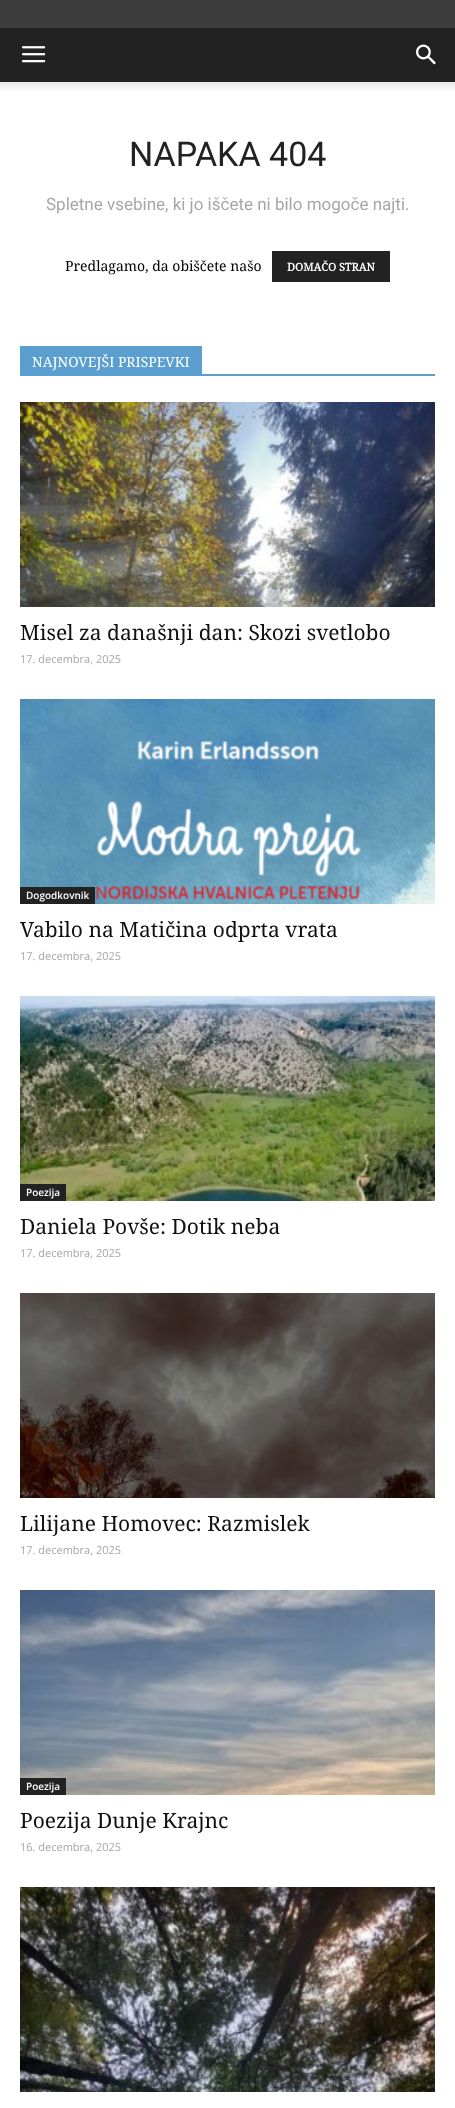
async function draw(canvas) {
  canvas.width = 455
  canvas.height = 2108
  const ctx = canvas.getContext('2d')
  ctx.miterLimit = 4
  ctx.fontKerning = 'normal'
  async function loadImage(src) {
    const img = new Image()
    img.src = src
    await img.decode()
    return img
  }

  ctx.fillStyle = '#fff'
  ctx.fillRect(0, 0, 455, 2108)
  ctx.fillStyle = '#3c3c3c'
  ctx.fillRect(0, 0, 455, 28)
  ctx.fillStyle = '#222'
  ctx.fillRect(0, 28, 455, 54)
  ctx.drawImage(await loadImage('image0.png'), 22, 46, 24, 17)
  ctx.drawImage(await loadImage('image1.png'), 416, 44, 20, 21)
  ctx.drawImage(await loadImage('image2.png'), 0, 82, 455, 9)
  ctx.font = '34px Roboto'
  ctx.fillText('NAPAKA 404', 129, 166)
  ctx.font = '17px Roboto'
  ctx.fillStyle = '#a6a6a6'
  ctx.fillText('Spletne vsebine, ki jo iščete ni bilo mogoče najti.', 46, 210)
  ctx.font = '14px Noto Serif'
  ctx.fillStyle = '#000'
  ctx.fillText('Predlagamo, da obiščete našo', 65, 271)
  ctx.fillStyle = '#222'
  ctx.fillRect(272, 251, 118, 31)
  ctx.font = 'bold 11px Noto Serif'
  ctx.fillStyle = '#fff'
  ctx.fillText('DOMAČO STRAN', 287, 271)
  ctx.fillStyle = '#5a9fd0'
  ctx.fillRect(20, 374, 415, 2)
  ctx.fillRect(20, 346, 182, 28)
  ctx.font = '14px Noto Serif'
  ctx.fillStyle = '#fff'
  ctx.fillText('NAJNOVEJŠI PRISPEVKI', 32, 367)
  ctx.drawImage(await loadImage('image3.png'), 20, 402, 415, 205)
  ctx.font = '21px Noto Serif'
  ctx.fillStyle = '#111'
  ctx.fillText('Misel za današnji dan: Skozi svetlobo', 20, 640)
  ctx.font = '11px Open Sans'
  ctx.fillStyle = '#a6a6a6'
  ctx.fillText('17. decembra, 2025', 20, 663)
  ctx.drawImage(await loadImage('image4.png'), 20, 699, 415, 205)
  ctx.fillStyle = '#222'
  ctx.fillRect(20, 887, 75, 17)
  ctx.font = '600 10px Open Sans'
  ctx.fillStyle = '#fff'
  ctx.fillText('Dogodkovnik', 26, 899)
  ctx.font = '21px Noto Serif'
  ctx.fillStyle = '#111'
  ctx.fillText('Vabilo na Matičina odprta vrata', 20, 937)
  ctx.font = '11px Open Sans'
  ctx.fillStyle = '#a6a6a6'
  ctx.fillText('17. decembra, 2025', 20, 960)
  ctx.drawImage(await loadImage('image5.png'), 20, 996, 415, 205)
  ctx.fillStyle = '#222'
  ctx.fillRect(20, 1184, 46, 17)
  ctx.font = '600 10px Open Sans'
  ctx.fillStyle = '#fff'
  ctx.fillText('Poezija', 26, 1196)
  ctx.font = '21px Noto Serif'
  ctx.fillStyle = '#111'
  ctx.fillText('Daniela Povše: Dotik neba', 20, 1234)
  ctx.font = '11px Open Sans'
  ctx.fillStyle = '#a6a6a6'
  ctx.fillText('17. decembra, 2025', 20, 1257)
  ctx.drawImage(await loadImage('image6.png'), 20, 1293, 415, 205)
  ctx.font = '21px Noto Serif'
  ctx.fillStyle = '#111'
  ctx.fillText('Lilijane Homovec: Razmislek', 20, 1531)
  ctx.font = '11px Open Sans'
  ctx.fillStyle = '#a6a6a6'
  ctx.fillText('17. decembra, 2025', 20, 1554)
  ctx.drawImage(await loadImage('image7.png'), 20, 1590, 415, 205)
  ctx.fillStyle = '#222'
  ctx.fillRect(20, 1778, 46, 17)
  ctx.font = '600 10px Open Sans'
  ctx.fillStyle = '#fff'
  ctx.fillText('Poezija', 26, 1790)
  ctx.font = '21px Noto Serif'
  ctx.fillStyle = '#111'
  ctx.fillText('Poezija Dunje Krajnc', 20, 1828)
  ctx.font = '11px Open Sans'
  ctx.fillStyle = '#a6a6a6'
  ctx.fillText('16. decembra, 2025', 20, 1851)
  ctx.drawImage(await loadImage('image8.png'), 20, 1887, 415, 205)
}

draw(document.querySelector('canvas'))
